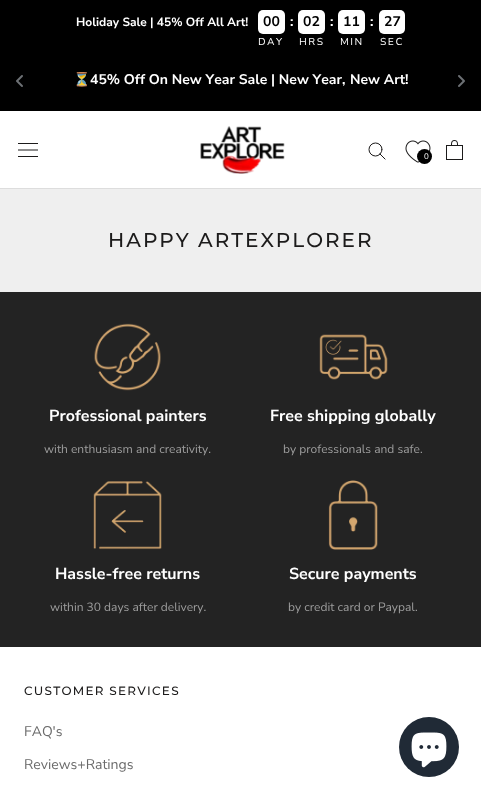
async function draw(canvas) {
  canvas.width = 481
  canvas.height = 798
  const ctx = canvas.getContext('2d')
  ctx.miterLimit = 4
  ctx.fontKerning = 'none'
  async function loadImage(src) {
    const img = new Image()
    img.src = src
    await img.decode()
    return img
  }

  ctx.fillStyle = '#efefef'
  ctx.fillRect(0, 0, 481, 798)
  ctx.fillStyle = '#000'
  ctx.fillRect(0, 0, 481, 111)
  ctx.font = 'bold 12px Nunito Sans'
  ctx.fillStyle = '#fff'
  ctx.fillText('Holiday Sale | 45% Off All Art!', 76, 26)
  ctx.beginPath()
  ctx.roundRect(258, 10, 27, 24, 5)
  ctx.fill()
  ctx.font = 'bold 14px Nunito Sans'
  ctx.fillStyle = '#000'
  ctx.fillText('00', 263, 26)
  ctx.letterSpacing = '1.5px'
  ctx.font = '10px Nunito Sans'
  ctx.fillStyle = '#fff'
  ctx.fillText('DAY', 258, 45)
  ctx.letterSpacing = '0px'
  ctx.font = 'bold 14px Nunito Sans'
  ctx.fillText(':', 290, 26)
  ctx.beginPath()
  ctx.roundRect(298, 10, 27, 24, 5)
  ctx.fill()
  ctx.fillStyle = '#000'
  ctx.fillText('02', 303, 26)
  ctx.letterSpacing = '1.5px'
  ctx.font = '10px Nunito Sans'
  ctx.fillStyle = '#fff'
  ctx.fillText('HRS', 299, 45)
  ctx.letterSpacing = '0px'
  ctx.font = 'bold 14px Nunito Sans'
  ctx.fillText(':', 330, 26)
  ctx.beginPath()
  ctx.roundRect(338, 10, 27, 24, 5)
  ctx.fill()
  ctx.fillStyle = '#000'
  ctx.fillText('11', 343, 26)
  ctx.letterSpacing = '1.5px'
  ctx.font = '10px Nunito Sans'
  ctx.fillStyle = '#fff'
  ctx.fillText('MIN', 340, 45)
  ctx.letterSpacing = '0px'
  ctx.font = 'bold 14px Nunito Sans'
  ctx.fillText(':', 370, 26)
  ctx.beginPath()
  ctx.roundRect(379, 10, 26, 24, 5)
  ctx.fill()
  ctx.fillStyle = '#000'
  ctx.fillText('27', 384, 26)
  ctx.letterSpacing = '1.5px'
  ctx.font = '10px Nunito Sans'
  ctx.fillStyle = '#fff'
  ctx.fillText('SEC', 380, 45)
  ctx.save()
  ctx.beginPath()
  ctx.rect(30, 72, 421, 17)
  ctx.clip()
  ctx.letterSpacing = '0px'
  ctx.font = 'bold 14px Noto Color Emoji'
  ctx.fillText('⏳', 73, 84)
  ctx.restore()
  ctx.letterSpacing = '0px'
  ctx.font = 'bold 14px Nunito Sans'
  ctx.fillText('45% Off On New Year Sale | New Year,', 90, 84)
  ctx.fillText('New Art!', 350, 84)
  ctx.drawImage(await loadImage('image0.png'), 16, 75, 7, 12)
  ctx.drawImage(await loadImage('image1.png'), 458, 75, 7, 12)
  ctx.fillRect(0, 111, 481, 77)
  ctx.fillStyle = '#ddd'
  ctx.fillRect(0, 188, 481, 1)
  ctx.drawImage(await loadImage('image2.png'), 18, 143, 20, 14)
  ctx.drawImage(await loadImage('image3.png'), 200, 126, 85, 48)
  ctx.beginPath()
  ctx.moveTo(385, 159)
  ctx.lineTo(380, 154)
  ctx.strokeStyle = '#1c1b1b'
  ctx.lineCap = 'square'
  ctx.stroke()
  ctx.beginPath()
  ctx.arc(375.5, 149.5, 6.5, 0, 2 * Math.PI)
  ctx.stroke()
  ctx.drawImage(await loadImage('image4.png'), 405, 140, 26, 23)
  ctx.fillStyle = '#000'
  ctx.beginPath()
  ctx.arc(424.5, 156.5, 7.5, 0, 2 * Math.PI)
  ctx.fill()
  ctx.font = '8px "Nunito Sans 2"'
  ctx.fillStyle = '#fff'
  ctx.fillText('0', 424, 159)
  ctx.drawImage(await loadImage('image5.png'), 446, 140, 17, 20)
  ctx.letterSpacing = '2px'
  ctx.font = '500 20px Montserrat'
  ctx.fillStyle = '#1c1b1b'
  ctx.fillText('HAPPY ARTEXPLORER', 108, 247)
  ctx.fillStyle = '#232323'
  ctx.fillRect(0, 292, 481, 355)
  ctx.drawImage(await loadImage('image6.png'), 94, 323, 67, 68)
  ctx.letterSpacing = '0px'
  ctx.font = 'bold 16px Nunito Sans'
  ctx.fillStyle = '#fff'
  ctx.fillText('Professional painters', 49, 421)
  ctx.font = '12px "Nunito Sans 2"'
  ctx.fillStyle = '#9d9d9d'
  ctx.fillText('with enthusiasm and creativity.', 44, 453)
  ctx.drawImage(await loadImage('image7.png'), 319, 334, 69, 46)
  ctx.font = 'bold 16px Nunito Sans'
  ctx.fillStyle = '#fff'
  ctx.fillText('Free shipping globally', 270, 421)
  ctx.font = '12px "Nunito Sans 2"'
  ctx.fillStyle = '#9d9d9d'
  ctx.fillText('by professionals and safe.', 283, 453)
  ctx.drawImage(await loadImage('image8.png'), 93, 481, 69, 69)
  ctx.font = 'bold 16px Nunito Sans'
  ctx.fillStyle = '#fff'
  ctx.fillText('Hassle-free returns', 55, 579)
  ctx.font = '12px "Nunito Sans 2"'
  ctx.fillStyle = '#9d9d9d'
  ctx.fillText('within 30 days after delivery.', 50, 611)
  ctx.drawImage(await loadImage('image9.png'), 328, 480, 50, 70)
  ctx.font = 'bold 16px Nunito Sans'
  ctx.fillStyle = '#fff'
  ctx.fillText('Secure payments', 289, 579)
  ctx.font = '12px "Nunito Sans 2"'
  ctx.fillStyle = '#9d9d9d'
  ctx.fillText('by credit card or Paypal.', 288, 611)
  ctx.fillStyle = '#fff'
  ctx.fillRect(0, 647, 481, 151)
  ctx.letterSpacing = '1.25px'
  ctx.font = '500 12px Montserrat'
  ctx.fillStyle = '#1c1b1b'
  ctx.fillText('CUSTOMER SERVICES', 24, 695)
  ctx.letterSpacing = '0px'
  ctx.font = '14px "Nunito Sans 2"'
  ctx.fillStyle = '#6a6a6a'
  ctx.fillText('FAQ\'s', 24, 736)
  ctx.fillText('Reviews+Ratings', 24, 769)
  ctx.fillStyle = '#202a36'
  ctx.beginPath()
  ctx.arc(429, 747, 30, 0, 2 * Math.PI)
  ctx.fill()
  ctx.drawImage(await loadImage('image10.png'), 411, 732, 36, 36)
}

draw(document.querySelector('canvas'))
